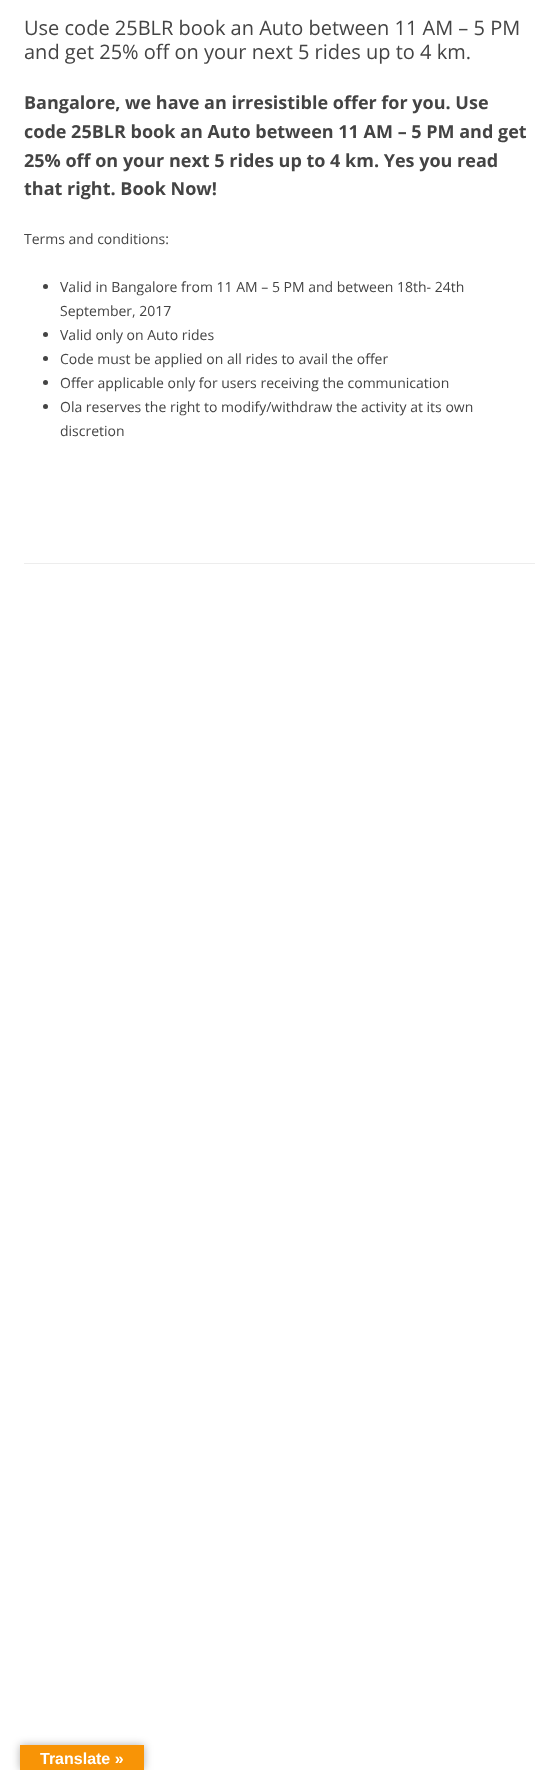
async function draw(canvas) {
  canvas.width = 559
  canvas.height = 1770
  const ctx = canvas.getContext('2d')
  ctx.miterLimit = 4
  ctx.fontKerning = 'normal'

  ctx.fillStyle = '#fff'
  ctx.fillRect(0, 0, 559, 1770)
  ctx.font = '20px Open Sans'
  ctx.fillStyle = '#444'
  ctx.fillText('Use code 25BLR book an Auto between 11 AM – 5 PM', 24, 35)
  ctx.fillText('and get 25% off on your next 5 rides up to 4 km.', 24, 59)
  ctx.font = 'bold 18px Open Sans'
  ctx.fillText('Bangalore, we have an irresistible offer for you. Use', 24, 109)
  ctx.fillText('code 25BLR book an Auto between 11 AM – 5 PM and get', 24, 138)
  ctx.fillText('25% off on your next 5 rides up to 4 km. Yes you read', 24, 167)
  ctx.fillText('that right. Book Now!', 24, 195)
  ctx.font = '14px Open Sans'
  ctx.fillText('Terms and conditions:', 24, 244)
  ctx.beginPath()
  ctx.arc(45.5, 286.5, 2.5, 0, 2 * Math.PI)
  ctx.fill()
  ctx.fillText('Valid in Bangalore from 11 AM – 5 PM and between 18th- 24th', 60, 292)
  ctx.fillText('September, 2017', 60, 316)
  ctx.beginPath()
  ctx.arc(45.5, 334.5, 2.5, 0, 2 * Math.PI)
  ctx.fill()
  ctx.fillText('Valid only on Auto rides', 60, 340)
  ctx.beginPath()
  ctx.arc(45.5, 358.5, 2.5, 0, 2 * Math.PI)
  ctx.fill()
  ctx.fillText('Code must be applied on all rides to avail the offer', 60, 364)
  ctx.beginPath()
  ctx.arc(45.5, 382.5, 2.5, 0, 2 * Math.PI)
  ctx.fill()
  ctx.fillText('Offer applicable only for users receiving the communication', 60, 388)
  ctx.beginPath()
  ctx.arc(45.5, 406.5, 2.5, 0, 2 * Math.PI)
  ctx.fill()
  ctx.fillText('Ola reserves the right to modify/withdraw the activity at its own', 60, 412)
  ctx.fillText('discretion', 60, 436)
  ctx.fillStyle = '#ededed'
  ctx.fillRect(24, 563, 511, 1)
  ctx.fillStyle = '#0000004d'
  ctx.filter = 'blur(4.5px)'
  ctx.beginPath()
  ctx.rect(20, 1745, 124, 25)
  ctx.fill()
  ctx.filter = 'none'
  ctx.fillStyle = '#f89406'
  ctx.fillRect(20, 1745, 124, 25)
  ctx.font = 'bold 16px Liberation Sans'
  ctx.fillStyle = '#fff'
  ctx.fillText('Translate »', 40, 1764)
}

draw(document.querySelector('canvas'))
